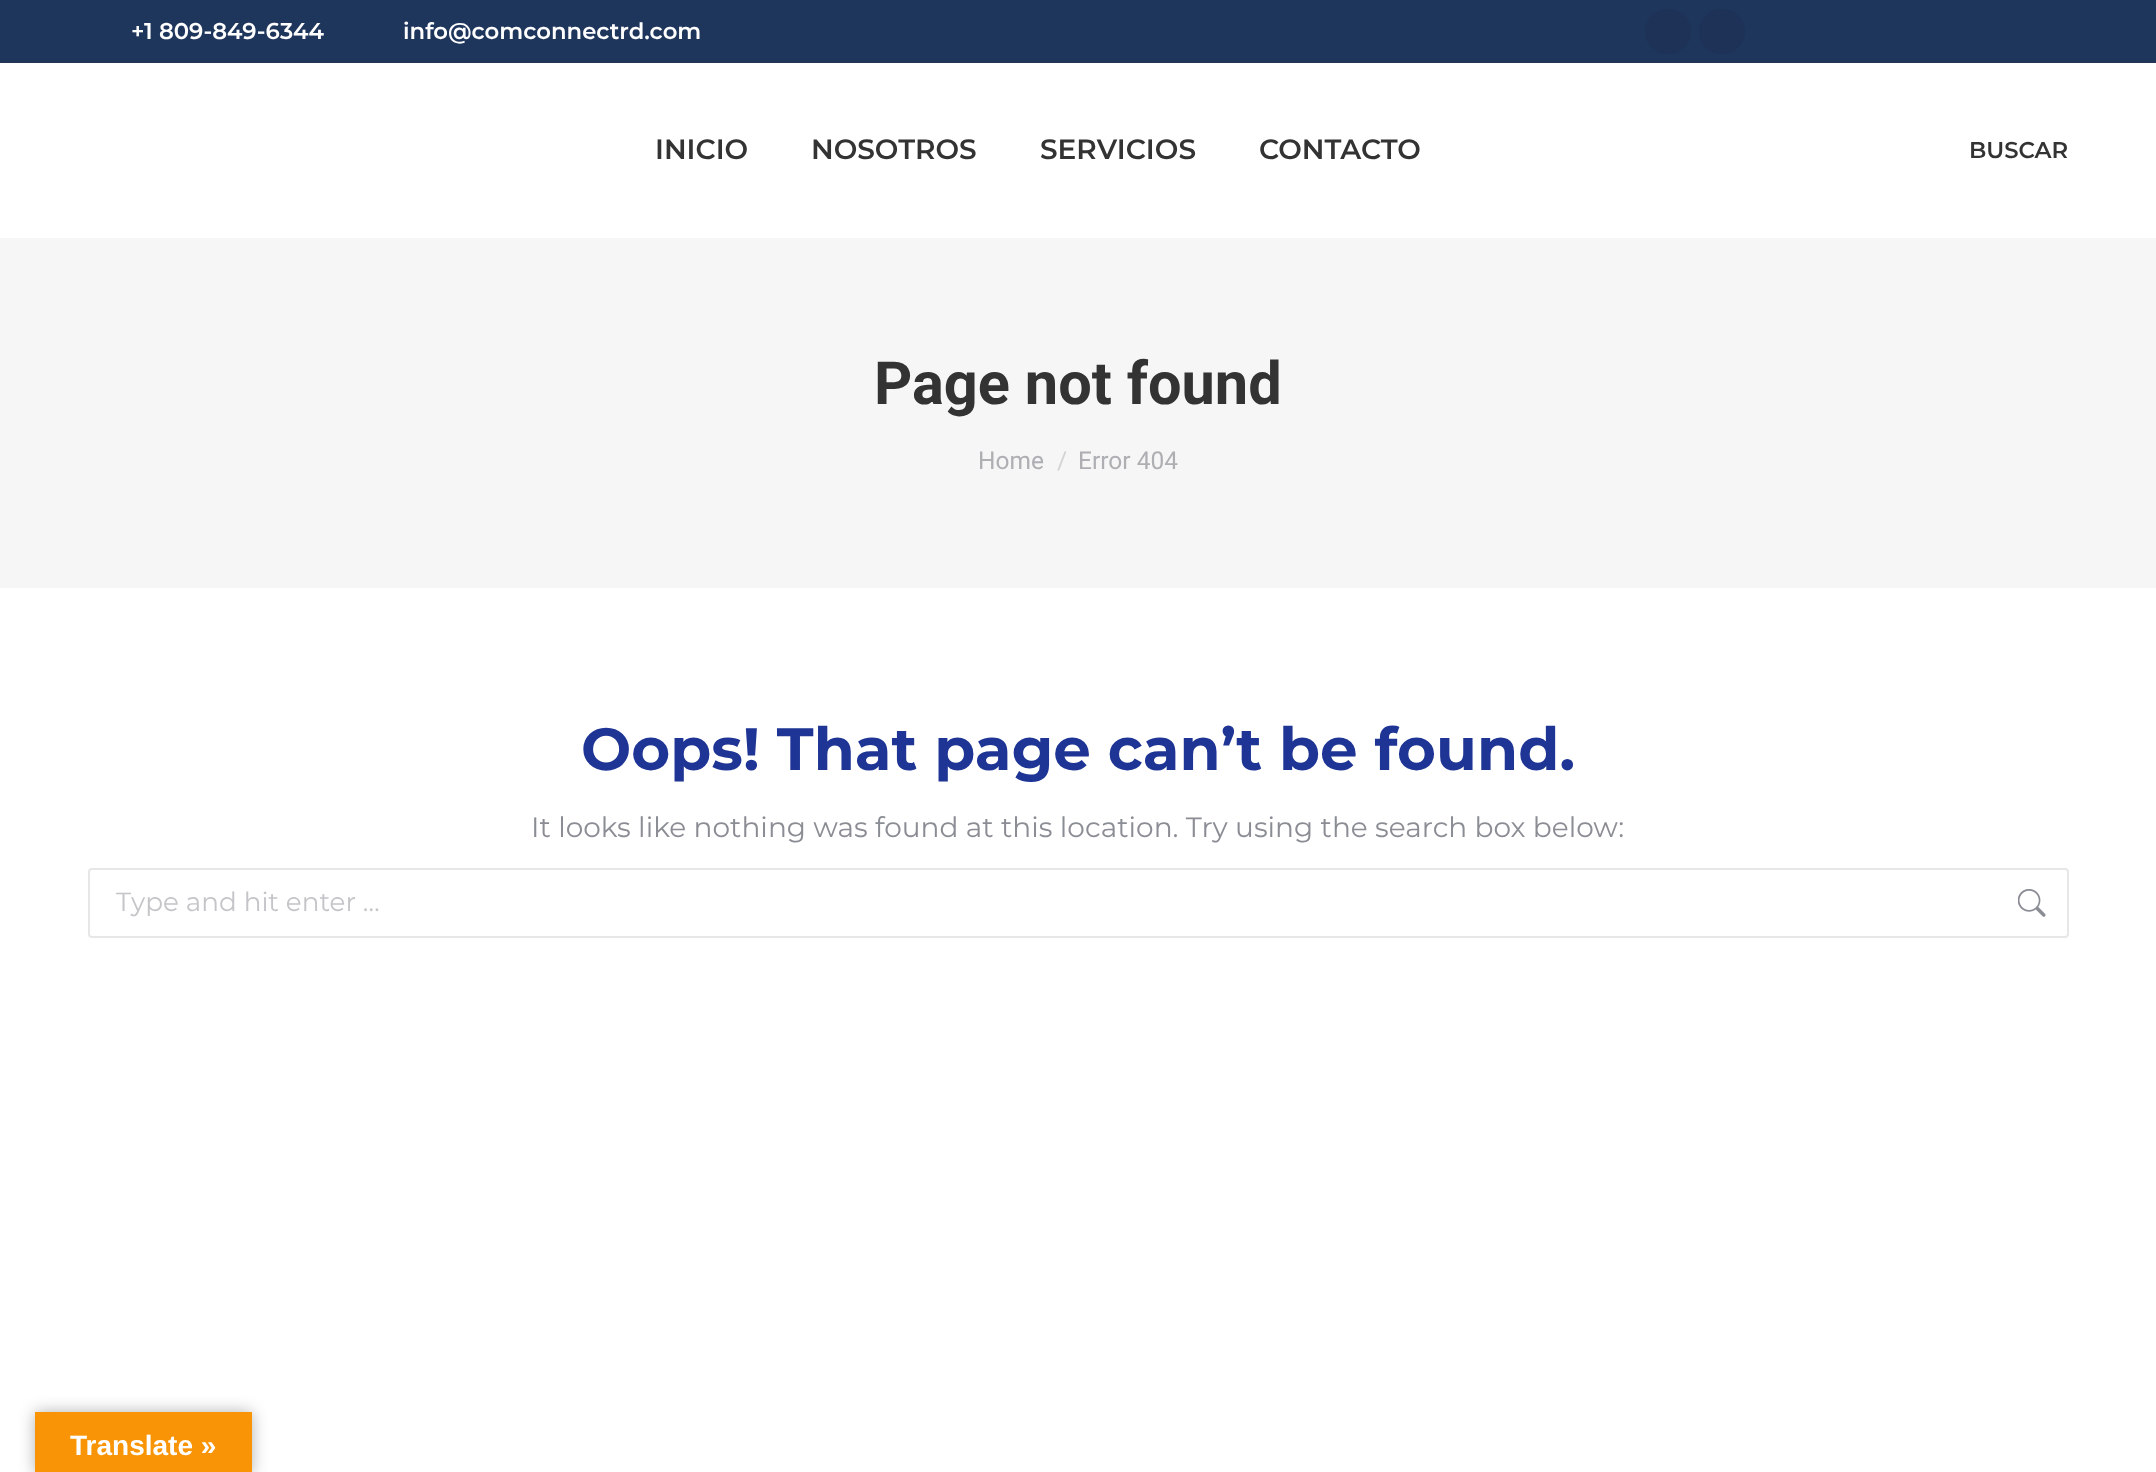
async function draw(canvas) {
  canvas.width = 2156
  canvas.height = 1472
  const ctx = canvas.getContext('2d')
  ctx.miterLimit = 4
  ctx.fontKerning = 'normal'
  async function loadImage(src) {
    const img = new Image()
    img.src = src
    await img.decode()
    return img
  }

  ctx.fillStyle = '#fff'
  ctx.fillRect(0, 0, 2156, 1472)
  ctx.fillStyle = '#1f365c'
  ctx.fillRect(0, 0, 2156, 61)
  ctx.font = '600 22.75px Montserrat'
  ctx.fillStyle = '#fff'
  ctx.fillText('+1 809-849-6344', 131, 39)
  ctx.fillText('info@comconnectrd.com', 403, 39)
  ctx.fillStyle = '#1d3256'
  ctx.beginPath()
  ctx.roundRect(1645, 9, 46, 45, 22.5)
  ctx.fill()
  ctx.beginPath()
  ctx.roundRect(1699, 9, 46, 45, 22.5)
  ctx.fill()
  ctx.fillStyle = '#213657'
  ctx.fillRect(0, 61, 2156, 2)
  ctx.font = '600 28px Montserrat'
  ctx.fillStyle = '#333'
  ctx.fillText('INICIO', 655, 159)
  ctx.fillText('NOSOTROS', 811, 159)
  ctx.fillText('SERVICIOS', 1040, 159)
  ctx.fillText('CONTACTO', 1259, 159)
  ctx.font = '600 22.75px Montserrat'
  ctx.fillText('BUSCAR', 1969, 158)
  ctx.fillStyle = '#f6f6f6'
  ctx.fillRect(0, 238, 2156, 350)
  ctx.font = 'bold 59.5px Roboto'
  ctx.fillStyle = '#333'
  ctx.fillText('Page not found', 874, 404)
  ctx.font = '24.5px Roboto'
  ctx.fillStyle = '#adafb3'
  ctx.fillText('Home', 978, 469)
  ctx.fillStyle = '#d2d3d5'
  ctx.fillText('/', 1057, 469)
  ctx.fillStyle = '#adafb3'
  ctx.fillText('Error 404', 1078, 469)
  ctx.font = 'bold 59.5px Montserrat'
  ctx.fillStyle = '#1e3595'
  ctx.fillText('Oops! That page can’t be found.', 581, 770)
  ctx.font = '28px Montserrat'
  ctx.fillStyle = '#8b8d94'
  ctx.fillText('It looks like nothing was found at this location. Try using the search box below:', 531, 837)
  ctx.beginPath()
  ctx.roundRect(89, 869, 1979, 68, 3)
  ctx.strokeStyle = '#e7e7e7'
  ctx.lineWidth = 2
  ctx.stroke()
  ctx.save()
  ctx.beginPath()
  ctx.rect(116, 884, 1898, 33)
  ctx.clip()
  ctx.font = '26.25px Montserrat'
  ctx.fillStyle = '#c4c5c9'
  ctx.fillText('Type and hit enter …', 116, 911)
  ctx.restore()
  ctx.drawImage(await loadImage('image0.png'), 2018, 889, 28, 28)
  ctx.fillStyle = '#0000004d'
  ctx.filter = 'blur(8px)'
  ctx.beginPath()
  ctx.rect(35, 1412, 217, 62)
  ctx.fill()
  ctx.filter = 'none'
  ctx.fillStyle = '#f89406'
  ctx.fillRect(35, 1412, 217, 60)
  ctx.font = 'bold 28px Liberation Sans'
  ctx.fillStyle = '#fff'
  ctx.fillText('Translate »', 70, 1455)
}

draw(document.querySelector('canvas'))
